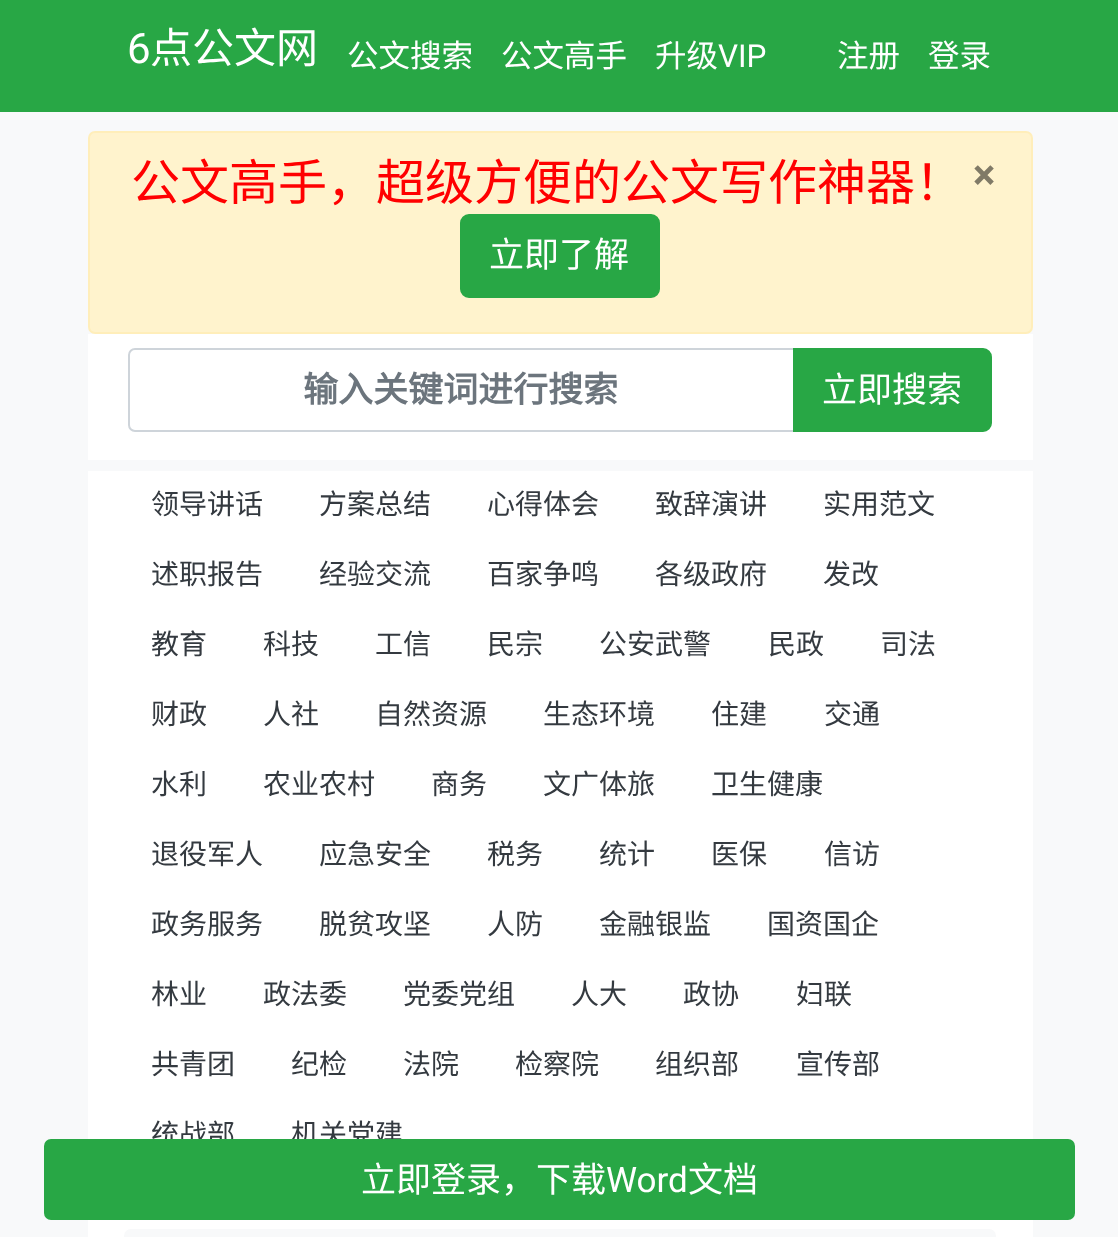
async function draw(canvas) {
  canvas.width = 1118
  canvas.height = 1237
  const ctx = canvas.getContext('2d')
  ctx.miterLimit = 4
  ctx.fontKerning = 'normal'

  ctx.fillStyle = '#f8f9fa'
  ctx.fillRect(0, 0, 1118, 1237)
  ctx.fillStyle = '#28a745'
  ctx.fillRect(0, 0, 1118, 112)
  ctx.font = '42px Roboto'
  ctx.fillStyle = '#fff'
  ctx.fillText('6', 127, 63)
  ctx.font = '42px Noto Sans CJK SC'
  ctx.fillText('点公文网', 150, 63)
  ctx.font = '31.5px Noto Sans CJK SC'
  ctx.fillText('公文搜索', 347, 67)
  ctx.fillText('公文高手', 501, 67)
  ctx.fillText('升级', 655, 67)
  ctx.font = '31.5px Roboto'
  ctx.fillText('VIP', 718, 67)
  ctx.font = '31.5px Noto Sans CJK SC'
  ctx.fillText('注册', 837, 67)
  ctx.fillText('登录', 928, 67)
  ctx.fillStyle = '#fff3cd'
  ctx.beginPath()
  ctx.roundRect(89, 132, 943, 201, 6)
  ctx.fill()
  ctx.strokeStyle = '#ffeeba'
  ctx.lineWidth = 2
  ctx.stroke()
  ctx.font = '49px Noto Sans CJK SC'
  ctx.fillStyle = '#f00'
  ctx.fillText('公文高手，超级方便的公文写作神器！', 131, 200)
  ctx.fillStyle = '#28a745'
  ctx.beginPath()
  ctx.roundRect(461, 215, 198, 82, 8)
  ctx.fill()
  ctx.strokeStyle = '#28a745'
  ctx.stroke()
  ctx.font = '35px Noto Sans CJK SC'
  ctx.fillStyle = '#fff'
  ctx.fillText('立即了解', 489, 267)
  ctx.font = 'bold 42px Roboto'
  ctx.fillStyle = '#807a67'
  ctx.fillText('×', 973, 189)
  ctx.fillStyle = '#fff'
  ctx.fillRect(88, 334, 945, 126)
  ctx.beginPath()
  ctx.roundRect(129, 349, 665, 82, [6, 0, 0, 6])
  ctx.strokeStyle = '#ced4da'
  ctx.stroke()
  ctx.font = 'bold 35px Noto Sans CJK SC'
  ctx.fillStyle = '#6c757d'
  ctx.fillText('输入关键词进行搜索', 303, 402)
  ctx.fillStyle = '#28a745'
  ctx.beginPath()
  ctx.roundRect(794, 349, 197, 82, [0, 8, 8, 0])
  ctx.fill()
  ctx.strokeStyle = '#28a745'
  ctx.stroke()
  ctx.font = '35px Noto Sans CJK SC'
  ctx.fillStyle = '#fff'
  ctx.fillText('立即搜索', 822, 402)
  ctx.fillRect(88, 471, 945, 766)
  ctx.font = '28px Noto Sans CJK SC'
  ctx.fillStyle = '#343a40'
  ctx.fillText('领导讲话', 151, 514)
  ctx.fillText('方案总结', 319, 514)
  ctx.fillText('心得体会', 487, 514)
  ctx.fillText('致辞演讲', 655, 514)
  ctx.fillText('实用范文', 823, 514)
  ctx.fillText('述职报告', 151, 584)
  ctx.fillText('经验交流', 319, 584)
  ctx.fillText('百家争鸣', 487, 584)
  ctx.fillText('各级政府', 655, 584)
  ctx.fillText('发改', 823, 584)
  ctx.fillText('教育', 151, 654)
  ctx.fillText('科技', 263, 654)
  ctx.fillText('工信', 375, 654)
  ctx.fillText('民宗', 487, 654)
  ctx.fillText('公安武警', 599, 654)
  ctx.fillText('民政', 768, 654)
  ctx.fillText('司法', 880, 654)
  ctx.fillText('财政', 151, 724)
  ctx.fillText('人社', 263, 724)
  ctx.fillText('自然资源', 375, 724)
  ctx.fillText('生态环境', 543, 724)
  ctx.fillText('住建', 711, 724)
  ctx.fillText('交通', 824, 724)
  ctx.fillText('水利', 151, 794)
  ctx.fillText('农业农村', 263, 794)
  ctx.fillText('商务', 431, 794)
  ctx.fillText('文广体旅', 543, 794)
  ctx.fillText('卫生健康', 711, 794)
  ctx.fillText('退役军人', 151, 864)
  ctx.fillText('应急安全', 319, 864)
  ctx.fillText('税务', 487, 864)
  ctx.fillText('统计', 599, 864)
  ctx.fillText('医保', 711, 864)
  ctx.fillText('信访', 824, 864)
  ctx.fillText('政务服务', 151, 934)
  ctx.fillText('脱贫攻坚', 319, 934)
  ctx.fillText('人防', 487, 934)
  ctx.fillText('金融银监', 599, 934)
  ctx.fillText('国资国企', 767, 934)
  ctx.fillText('林业', 151, 1004)
  ctx.fillText('政法委', 263, 1004)
  ctx.fillText('党委党组', 403, 1004)
  ctx.fillText('人大', 571, 1004)
  ctx.fillText('政协', 683, 1004)
  ctx.fillText('妇联', 796, 1004)
  ctx.fillText('共青团', 151, 1074)
  ctx.fillText('纪检', 291, 1074)
  ctx.fillText('法院', 403, 1074)
  ctx.fillText('检察院', 515, 1074)
  ctx.fillText('组织部', 655, 1074)
  ctx.fillText('宣传部', 796, 1074)
  ctx.fillText('统战部', 151, 1144)
  ctx.fillText('机关党建', 291, 1144)
  ctx.fillStyle = '#f8f9fa'
  ctx.beginPath()
  ctx.roundRect(124, 1229, 872, 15, 7)
  ctx.fill()
  ctx.fillStyle = '#28a745'
  ctx.beginPath()
  ctx.roundRect(44, 1139, 1031, 81, 7)
  ctx.fill()
  ctx.font = '35px Noto Sans CJK SC'
  ctx.fillStyle = '#fff'
  ctx.fillText('立即登录，下载', 361, 1192)
  ctx.font = '35px Roboto'
  ctx.fillText('Word', 606, 1192)
  ctx.font = '35px Noto Sans CJK SC'
  ctx.fillText('文档', 688, 1192)
}

draw(document.querySelector('canvas'))
